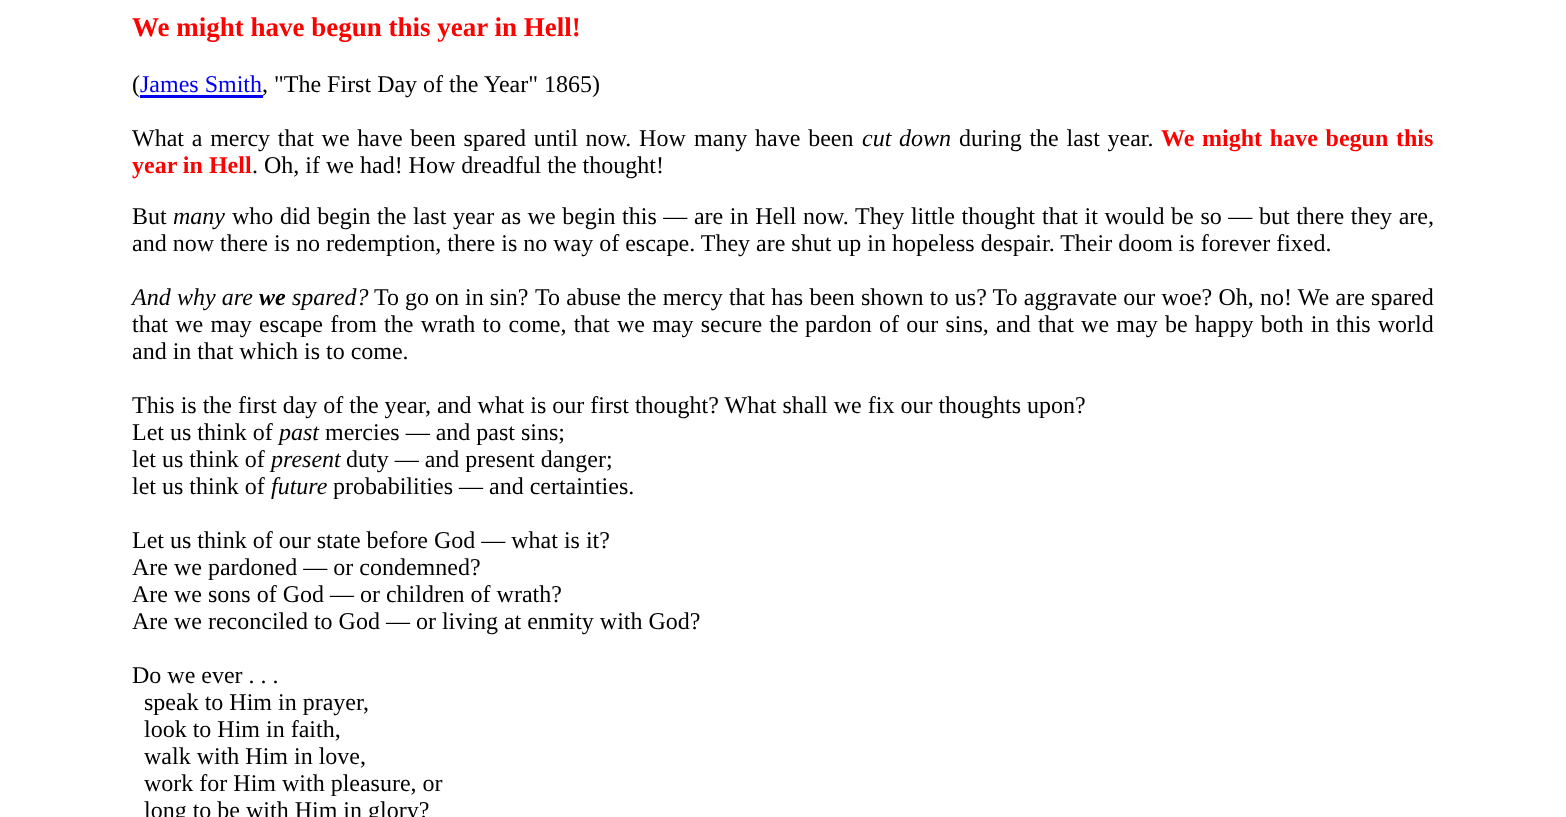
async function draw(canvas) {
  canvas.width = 1566
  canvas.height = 817
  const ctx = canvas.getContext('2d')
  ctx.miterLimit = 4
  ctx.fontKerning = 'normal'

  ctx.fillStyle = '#fff'
  ctx.fillRect(0, 0, 1566, 817)
  ctx.font = 'bold 27px Liberation Serif'
  ctx.fillStyle = '#f00'
  ctx.fillText('We might have begun this year in Hell!', 132, 36)
  ctx.font = '24px Liberation Serif'
  ctx.fillStyle = '#000'
  ctx.fillText('(', 132, 92)
  ctx.fillStyle = '#00e'
  ctx.fillText('James Smith', 140, 92)
  ctx.fillRect(140, 95, 123, 3)
  ctx.fillStyle = '#000'
  ctx.fillText(',', 262, 92)
  ctx.fillText('"The First Day of the', 274, 92)
  ctx.fillText('Year" 1865)', 484, 92)
  ctx.wordSpacing = '1.75px'
  ctx.fillText('What a mercy that we have been spared until now. How', 132, 146)
  ctx.fillText('many have been', 694, 146)
  ctx.font = 'italic 24px Liberation Serif'
  ctx.fillText('cut down', 862, 146)
  ctx.font = '24px Liberation Serif'
  ctx.fillText('during the last year.', 959, 146)
  ctx.font = 'bold 24px Liberation Serif'
  ctx.fillStyle = '#f00'
  ctx.fillText('We might have begun this', 1161, 146)
  ctx.wordSpacing = '0px'
  ctx.fillText('year in Hell', 132, 173)
  ctx.font = '24px Liberation Serif'
  ctx.fillStyle = '#000'
  ctx.fillText('. Oh, if we had! How dreadful the thought!', 252, 173)
  ctx.fillText('But', 132, 224)
  ctx.font = 'italic 24px Liberation Serif'
  ctx.fillText('many', 173, 224)
  ctx.wordSpacing = '0.6px'
  ctx.font = '24px Liberation Serif'
  ctx.fillText('who did begin the last year', 232, 224)
  ctx.fillText('as we begin this — are in Hell now. They little thought', 501, 224)
  ctx.fillText('that it would be so — but there they are,', 1042, 224)
  ctx.wordSpacing = '0px'
  ctx.fillText('and now there is no redemption, there is no way of escape. They are shut up in hopeless despair. Their doom is forever fixed.', 132, 251)
  ctx.wordSpacing = '0.25px'
  ctx.font = 'italic 24px Liberation Serif'
  ctx.fillText('And why are', 132, 305)
  ctx.wordSpacing = '0px'
  ctx.font = 'italic bold 24px Liberation Serif'
  ctx.fillText('we', 259, 305)
  ctx.font = 'italic 24px Liberation Serif'
  ctx.fillText('spared?', 292, 305)
  ctx.font = '24px Liberation Serif'
  ctx.fillText('To go on in sin?', 374, 305)
  ctx.wordSpacing = '0.25px'
  ctx.fillText('To abuse the mercy that has been shown to us? To aggravate our woe? Oh, no! We are spared', 535, 305)
  ctx.wordSpacing = '1.25px'
  ctx.fillText('that we may', 132, 332)
  ctx.fillText('escape from the wrath to come, that we may secure the', 259, 332)
  ctx.fillText('pardon of our sins, and that we may be happy both in', 805, 332)
  ctx.wordSpacing = '1px'
  ctx.fillText('this world', 1336, 332)
  ctx.wordSpacing = '0px'
  ctx.fillText('and in that which is to come.', 132, 359)
  ctx.fillText('This is the first day of the year, and what is our first thought? What shall we fix our thoughts upon?', 132, 413)
  ctx.fillText('Let us think of', 132, 440)
  ctx.font = 'italic 24px Liberation Serif'
  ctx.fillText('past', 279, 440)
  ctx.font = '24px Liberation Serif'
  ctx.fillText('mercies — and past sins;', 325, 440)
  ctx.fillText('let us think of', 132, 467)
  ctx.font = 'italic 24px Liberation Serif'
  ctx.fillText('present', 271, 467)
  ctx.font = '24px Liberation Serif'
  ctx.fillText('duty — and present danger;', 346, 467)
  ctx.fillText('let us think of', 132, 494)
  ctx.font = 'italic 24px Liberation Serif'
  ctx.fillText('future', 271, 494)
  ctx.font = '24px Liberation Serif'
  ctx.fillText('probabilities — and certainties.', 333, 494)
  ctx.fillText('Let us think of our state before God — what is it?', 132, 548)
  ctx.fillText('Are we pardoned — or condemned?', 132, 575)
  ctx.fillText('Are we sons of God — or children of wrath?', 132, 602)
  ctx.fillText('Are we reconciled to God — or living at enmity with God?', 132, 629)
  ctx.fillText('Do we ever . . .', 132, 683)
  ctx.fillText('speak to Him in prayer,', 144, 710)
  ctx.fillText('look to Him in faith,', 144, 737)
  ctx.fillText('walk with Him in love,', 144, 764)
  ctx.fillText('work for Him with pleasure, or', 144, 791)
  ctx.fillText('long to be with Him in glory?', 144, 818)
}

draw(document.querySelector('canvas'))
